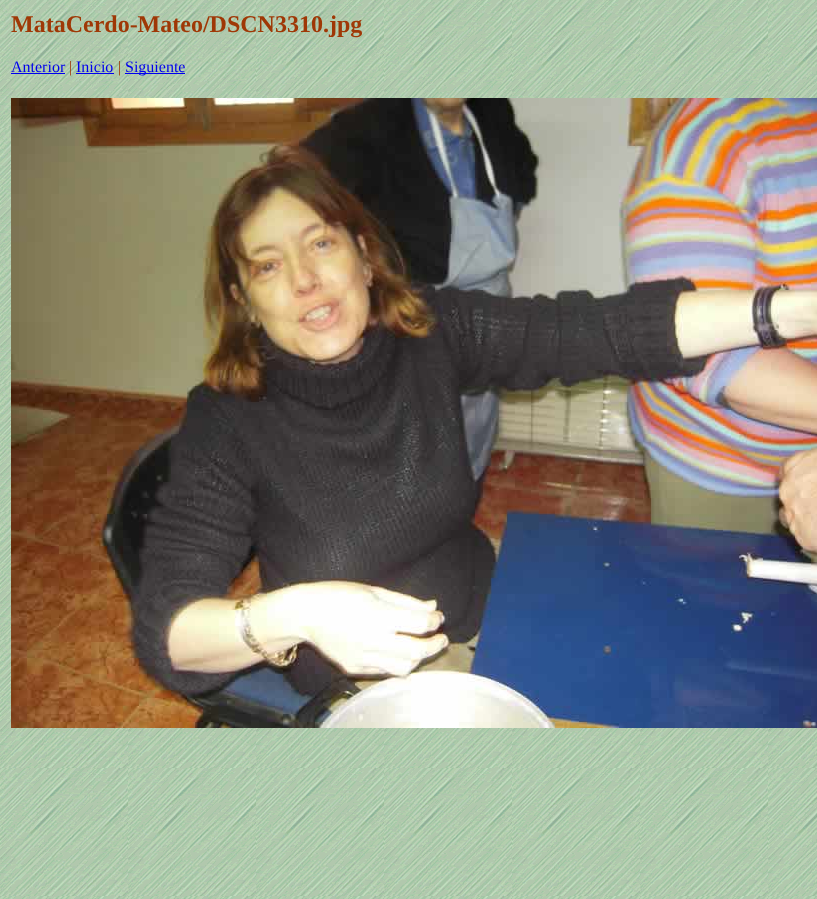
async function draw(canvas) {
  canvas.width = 817
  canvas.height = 899
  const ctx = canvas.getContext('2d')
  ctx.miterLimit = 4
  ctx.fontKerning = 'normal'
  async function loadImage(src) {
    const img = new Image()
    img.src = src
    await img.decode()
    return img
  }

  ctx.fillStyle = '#fff'
  ctx.fillRect(0, 0, 817, 899)
  ctx.drawImage(await loadImage('image0.png'), 0, 0, 817, 899)
  ctx.font = 'bold 24px Liberation Serif'
  ctx.fillStyle = '#9f3806'
  ctx.fillText('MataCerdo-Mateo/DSCN3310.jpg', 11, 32)
  ctx.font = '16px Liberation Serif'
  ctx.fillStyle = '#00e'
  ctx.fillText('Anterior', 11, 72)
  ctx.fillRect(11, 73, 54, 1)
  ctx.fillStyle = '#9f3806'
  ctx.fillText('|', 69, 72)
  ctx.fillStyle = '#00e'
  ctx.fillText('Inicio', 76, 72)
  ctx.fillRect(76, 73, 38, 1)
  ctx.fillStyle = '#9f3806'
  ctx.fillText('|', 118, 72)
  ctx.fillStyle = '#00e'
  ctx.fillRect(125, 73, 60, 1)
  ctx.fillText('Siguiente', 125, 72)
  ctx.drawImage(await loadImage('image1.png'), 11, 98, 806, 630)
}

draw(document.querySelector('canvas'))
